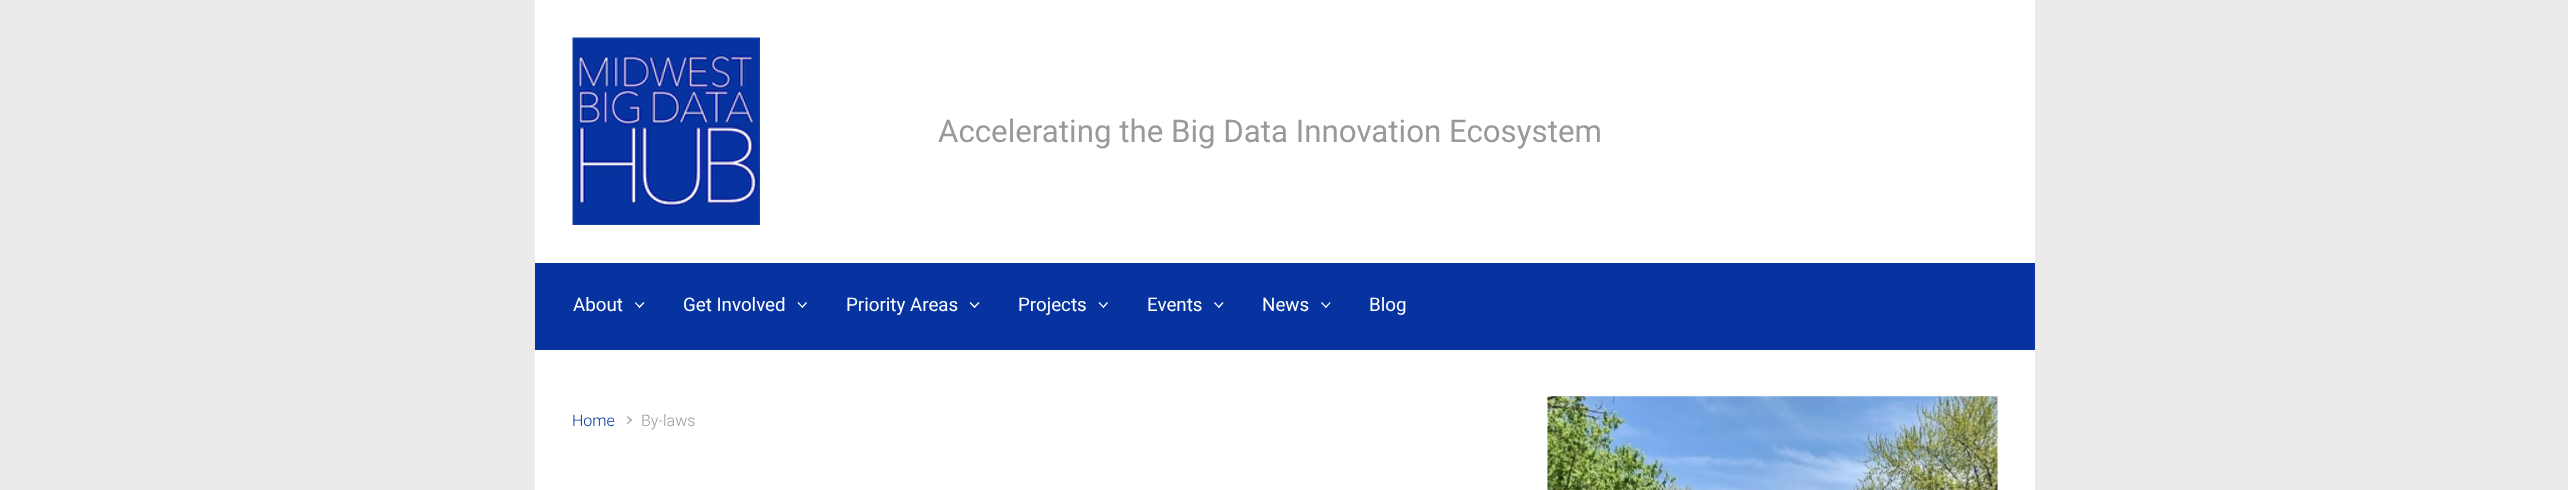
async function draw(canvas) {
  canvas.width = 2568
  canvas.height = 490
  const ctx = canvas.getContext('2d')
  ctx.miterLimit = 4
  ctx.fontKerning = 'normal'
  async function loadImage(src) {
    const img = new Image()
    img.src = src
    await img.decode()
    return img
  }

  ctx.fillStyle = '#ecebe9'
  ctx.fillRect(0, 0, 2568, 490)
  ctx.fillStyle = '#fff'
  ctx.fillRect(535, 0, 1500, 263)
  ctx.drawImage(await loadImage('image0.png'), 572, 37, 188, 188)
  ctx.font = '31.25px Roboto'
  ctx.fillStyle = '#999'
  ctx.fillText('Accelerating the Big Data Innovation Ecosystem', 938, 142)
  ctx.fillStyle = '#0633a0'
  ctx.fillRect(535, 263, 1500, 87)
  ctx.font = '18.75px Roboto'
  ctx.fillStyle = '#fff'
  ctx.fillText('About', 573, 311)
  ctx.beginPath()
  ctx.moveTo(643.5, 302)
  ctx.lineTo(644.5, 303)
  ctx.lineTo(639.5, 308)
  ctx.lineTo(638.5, 307)
  ctx.closePath()
  ctx.fill()
  ctx.beginPath()
  ctx.moveTo(635.5, 302)
  ctx.lineTo(640.5, 307)
  ctx.lineTo(639.5, 308)
  ctx.lineTo(635, 303)
  ctx.closePath()
  ctx.fill()
  ctx.fillText('Get Involved', 683, 311)
  ctx.beginPath()
  ctx.moveTo(806, 302)
  ctx.lineTo(807, 303)
  ctx.lineTo(802.5, 308)
  ctx.lineTo(801.5, 307)
  ctx.closePath()
  ctx.fill()
  ctx.beginPath()
  ctx.moveTo(798.5, 302)
  ctx.lineTo(803, 307)
  ctx.lineTo(802.5, 308)
  ctx.lineTo(797.5, 303)
  ctx.closePath()
  ctx.fill()
  ctx.fillText('Priority Areas', 846, 311)
  ctx.beginPath()
  ctx.moveTo(978.5, 302)
  ctx.lineTo(979.5, 303)
  ctx.lineTo(974.5, 308)
  ctx.lineTo(973.5, 307)
  ctx.closePath()
  ctx.fill()
  ctx.beginPath()
  ctx.moveTo(970.5, 302)
  ctx.lineTo(975.5, 307)
  ctx.lineTo(974.5, 308)
  ctx.lineTo(969.5, 303)
  ctx.closePath()
  ctx.fill()
  ctx.fillText('Projects', 1018, 311)
  ctx.beginPath()
  ctx.moveTo(1107, 302)
  ctx.lineTo(1108, 303)
  ctx.lineTo(1103.5, 308)
  ctx.lineTo(1102.5, 307)
  ctx.closePath()
  ctx.fill()
  ctx.beginPath()
  ctx.moveTo(1099.5, 302)
  ctx.lineTo(1104, 307)
  ctx.lineTo(1103.5, 308)
  ctx.lineTo(1098.5, 303)
  ctx.closePath()
  ctx.fill()
  ctx.fillText('Events', 1147, 311)
  ctx.beginPath()
  ctx.moveTo(1222.5, 302)
  ctx.lineTo(1223.5, 303)
  ctx.lineTo(1219, 308)
  ctx.lineTo(1218, 307)
  ctx.closePath()
  ctx.fill()
  ctx.beginPath()
  ctx.moveTo(1215, 302)
  ctx.lineTo(1219.5, 307)
  ctx.lineTo(1219, 308)
  ctx.lineTo(1214, 303)
  ctx.closePath()
  ctx.fill()
  ctx.fillText('News', 1262, 311)
  ctx.beginPath()
  ctx.moveTo(1330, 302)
  ctx.lineTo(1330.5, 303)
  ctx.lineTo(1326, 308)
  ctx.lineTo(1325, 307)
  ctx.closePath()
  ctx.fill()
  ctx.beginPath()
  ctx.moveTo(1322, 302)
  ctx.lineTo(1326.5, 307)
  ctx.lineTo(1326, 308)
  ctx.lineTo(1321, 303)
  ctx.closePath()
  ctx.fill()
  ctx.fillText('Blog', 1369, 311)
  ctx.fillRect(535, 350, 1500, 140)
  ctx.font = '300 16px Roboto'
  ctx.fillStyle = '#0633a0'
  ctx.fillText('Home', 572, 426)
  ctx.fillStyle = '#999'
  ctx.beginPath()
  ctx.moveTo(627, 417)
  ctx.lineTo(627.5, 416)
  ctx.lineTo(632, 420)
  ctx.lineTo(631, 421)
  ctx.closePath()
  ctx.fill()
  ctx.beginPath()
  ctx.moveTo(627, 423.5)
  ctx.lineTo(631, 419.5)
  ctx.lineTo(632, 420)
  ctx.lineTo(627.5, 424.5)
  ctx.closePath()
  ctx.fill()
  ctx.fillText('By-laws', 641, 426)
  ctx.drawImage(await loadImage('image1.png'), 1547, 396, 451, 94)
}

draw(document.querySelector('canvas'))
